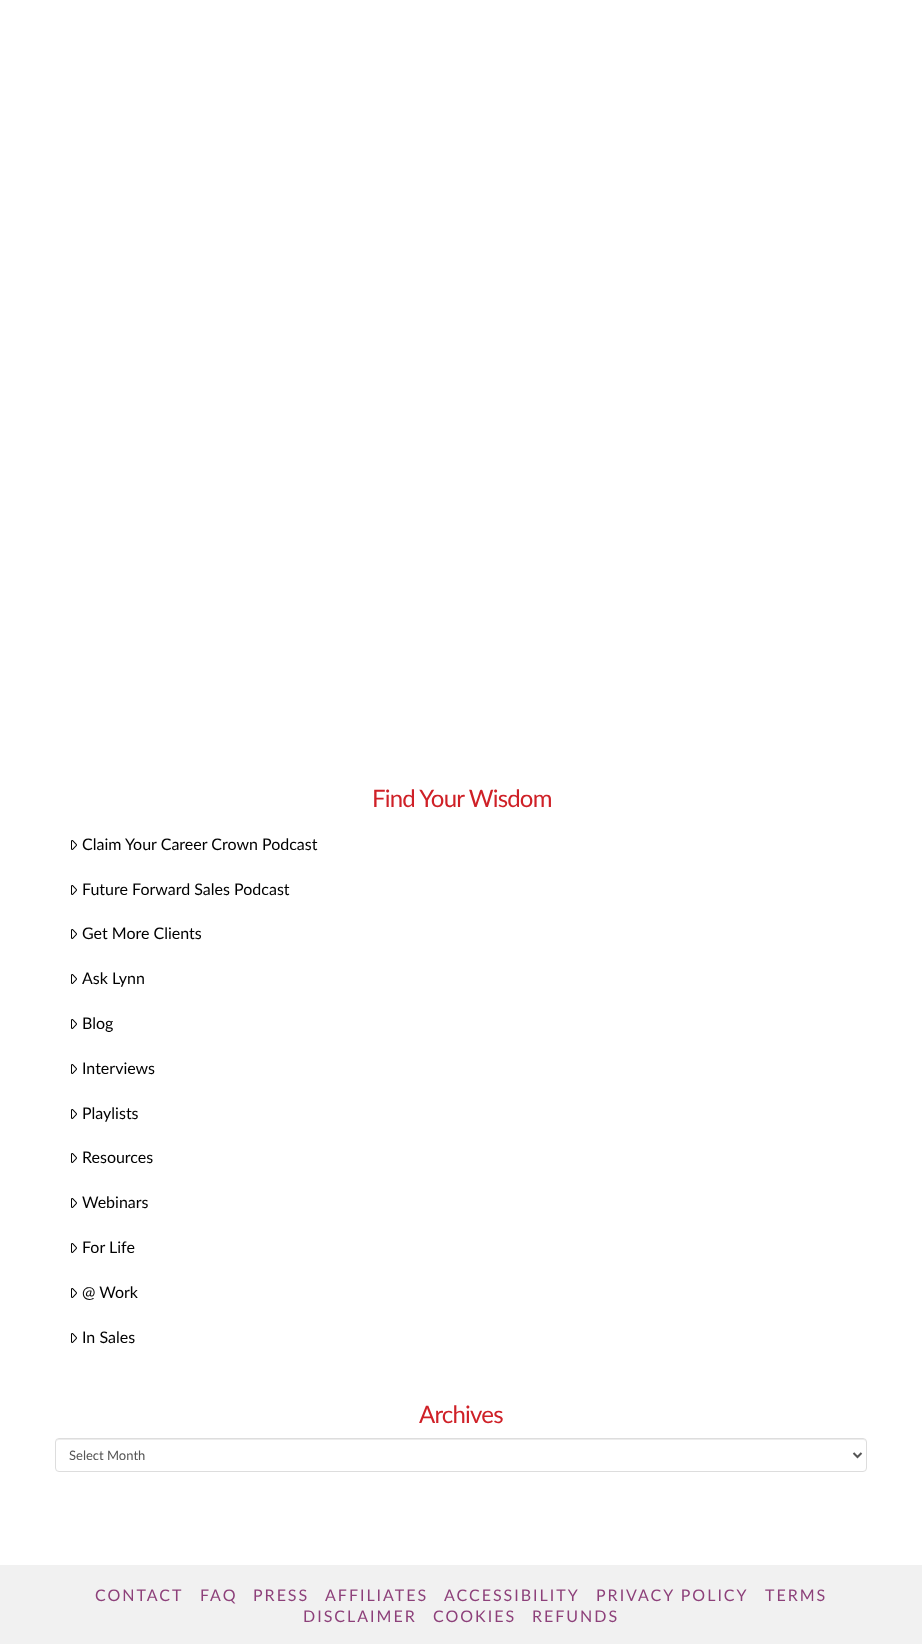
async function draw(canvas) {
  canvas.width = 922
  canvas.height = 1644
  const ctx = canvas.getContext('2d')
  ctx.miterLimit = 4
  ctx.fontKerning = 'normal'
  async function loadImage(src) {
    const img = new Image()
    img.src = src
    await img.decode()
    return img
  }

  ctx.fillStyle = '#fff'
  ctx.fillRect(0, 0, 922, 1644)
  ctx.letterSpacing = '-0.8px'
  ctx.font = '24px Lato'
  ctx.fillStyle = '#cf2027'
  ctx.fillText('Find Your Wisdom', 372, 807)
  ctx.drawImage(await loadImage('image0.png'), 71, 840, 6, 10)
  ctx.letterSpacing = '0px'
  ctx.font = '16px Lato'
  ctx.fillStyle = '#000'
  ctx.fillText('Claim Your Career Crown Podcast', 82, 850)
  ctx.drawImage(await loadImage('image0.png'), 71, 885, 6, 10)
  ctx.fillText('Future Forward Sales Podcast', 82, 895)
  ctx.drawImage(await loadImage('image0.png'), 71, 929, 6, 10)
  ctx.fillText('Get More Clients', 82, 939)
  ctx.drawImage(await loadImage('image0.png'), 71, 974, 6, 10)
  ctx.fillText('Ask Lynn', 82, 984)
  ctx.drawImage(await loadImage('image0.png'), 71, 1019, 6, 10)
  ctx.fillText('Blog', 82, 1029)
  ctx.drawImage(await loadImage('image0.png'), 71, 1064, 6, 10)
  ctx.fillText('Interviews', 82, 1074)
  ctx.drawImage(await loadImage('image0.png'), 71, 1109, 6, 10)
  ctx.fillText('Playlists', 82, 1119)
  ctx.drawImage(await loadImage('image0.png'), 71, 1153, 6, 10)
  ctx.fillText('Resources', 82, 1163)
  ctx.drawImage(await loadImage('image0.png'), 71, 1198, 6, 10)
  ctx.fillText('Webinars', 82, 1208)
  ctx.drawImage(await loadImage('image0.png'), 71, 1243, 6, 10)
  ctx.fillText('For Life', 82, 1253)
  ctx.drawImage(await loadImage('image0.png'), 71, 1288, 6, 10)
  ctx.fillText('@ Work', 82, 1298)
  ctx.drawImage(await loadImage('image0.png'), 71, 1333, 6, 10)
  ctx.fillText('In Sales', 82, 1343)
  ctx.letterSpacing = '-0.8px'
  ctx.font = '24px Lato'
  ctx.fillStyle = '#cf2027'
  ctx.fillText('Archives', 419, 1423)
  ctx.fillStyle = '#ececec'
  ctx.beginPath()
  ctx.moveTo(59, 1440)
  ctx.lineTo(863, 1440)
  ctx.bezierCurveTo(865, 1440, 866, 1441, 866, 1443)
  ctx.bezierCurveTo(866, 1441, 865, 1439, 863, 1439)
  ctx.lineTo(59, 1439)
  ctx.bezierCurveTo(57, 1439, 56, 1441, 56, 1443)
  ctx.bezierCurveTo(56, 1441, 57, 1440, 59, 1440)
  ctx.closePath()
  ctx.fill()
  ctx.beginPath()
  ctx.roundRect(55.5, 1438.5, 811, 33, 3.5)
  ctx.strokeStyle = '#ddd'
  ctx.stroke()
  ctx.beginPath()
  ctx.moveTo(853.5, 1453)
  ctx.lineTo(857.5, 1457)
  ctx.lineTo(861.5, 1453)
  ctx.strokeStyle = '#555'
  ctx.lineWidth = 2
  ctx.stroke()
  ctx.letterSpacing = '0px'
  ctx.font = '13px Lato'
  ctx.fillStyle = '#555'
  ctx.fillText('Select Month', 69, 1460)
  ctx.fillStyle = '#f1f1f1'
  ctx.fillRect(0, 1565, 922, 79)
  ctx.letterSpacing = '2px'
  ctx.font = '16px Lato'
  ctx.fillStyle = '#8d407a'
  ctx.fillText('CONTACT', 95, 1601)
  ctx.fillText('FAQ', 200, 1601)
  ctx.fillText('PRESS', 253, 1601)
  ctx.fillText('AFFILIATES', 325, 1601)
  ctx.fillText('ACCESSIBILITY', 444, 1601)
  ctx.fillText('PRIVACY POLICY', 596, 1601)
  ctx.fillText('TERMS', 765, 1601)
  ctx.fillText('DISCLAIMER', 303, 1622)
  ctx.fillText('COOKIES', 433, 1622)
  ctx.fillText('REFUNDS', 532, 1622)
}

draw(document.querySelector('canvas'))
